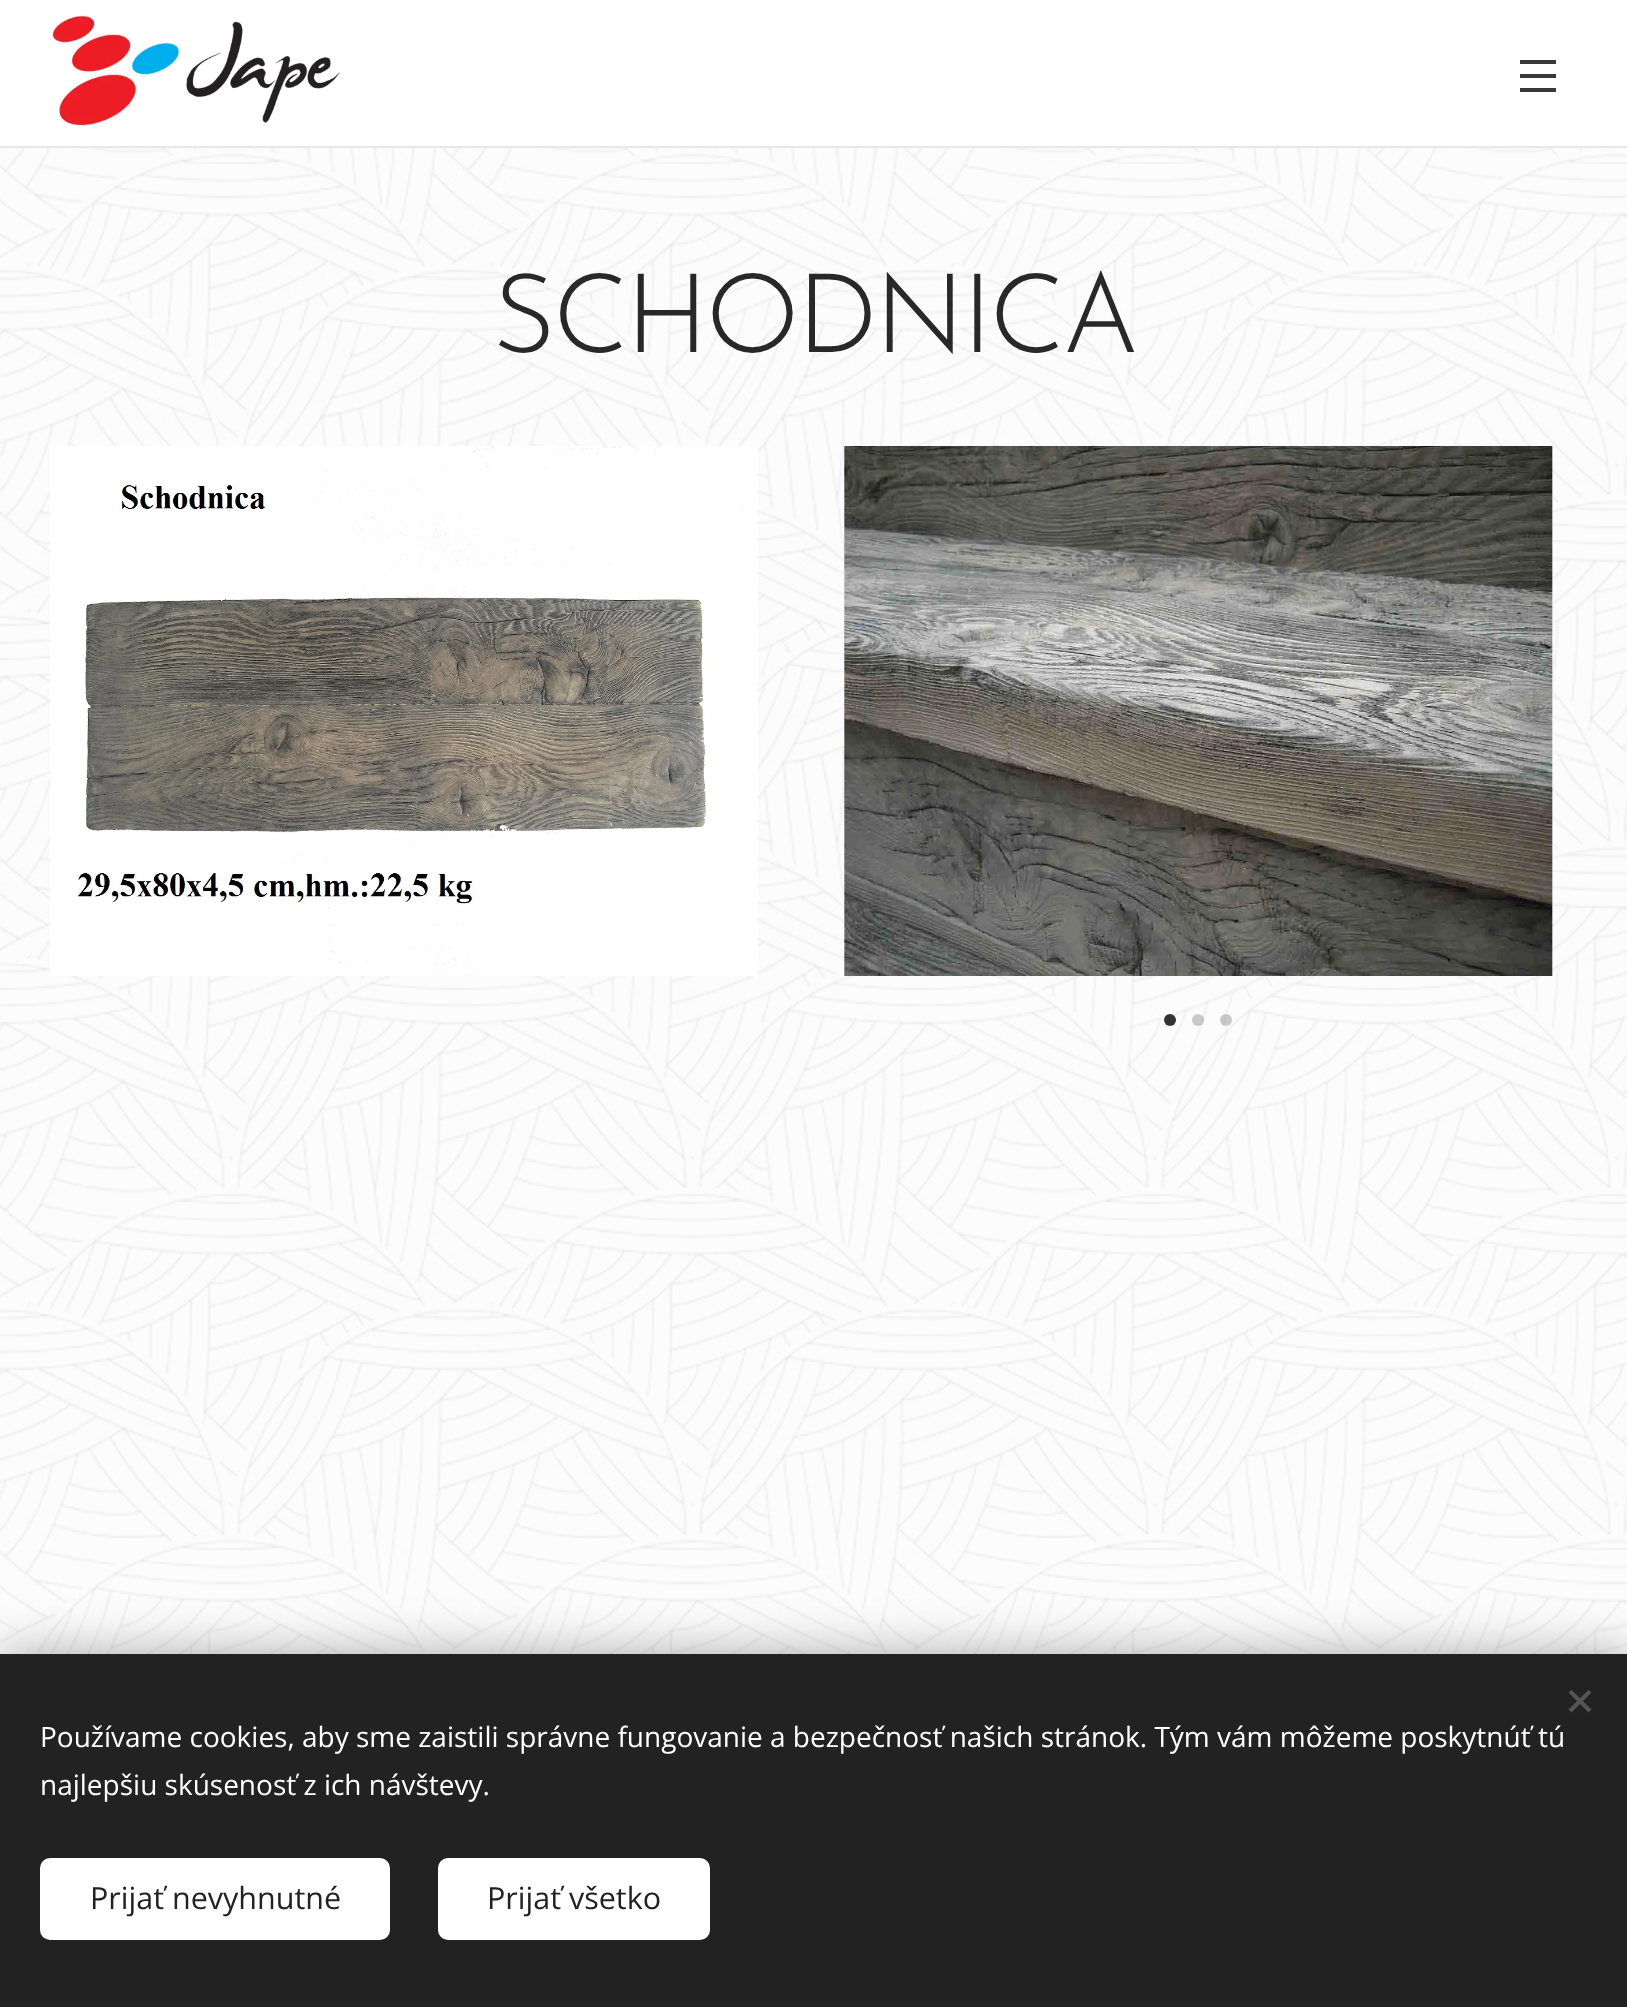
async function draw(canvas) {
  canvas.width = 1627
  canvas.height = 2007
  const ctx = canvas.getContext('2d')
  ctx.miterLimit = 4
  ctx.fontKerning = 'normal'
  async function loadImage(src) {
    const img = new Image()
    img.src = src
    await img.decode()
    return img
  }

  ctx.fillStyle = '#fff'
  ctx.fillRect(0, 0, 1627, 2007)
  ctx.drawImage(await loadImage('image0.png'), 51, 15, 289, 112)
  ctx.fillStyle = '#393939'
  ctx.fillRect(1520, 74, 36, 4)
  ctx.fillRect(1520, 60, 36, 4)
  ctx.fillRect(1520, 88, 36, 4)
  ctx.fillStyle = '#e8e8e8'
  ctx.fillRect(0, 146, 1627, 2)
  ctx.drawImage(await loadImage('image1.png'), 0, 148, 1627, 1506)
  ctx.letterSpacing = '-3.25px'
  ctx.font = '300 110px Josefin Sans'
  ctx.fillStyle = '#282828'
  ctx.fillText('SCHODNICA', 492, 352)
  ctx.drawImage(await loadImage('image2.png'), 50, 446, 708, 530)
  ctx.drawImage(await loadImage('image3.png'), 844, 446, 709, 530)
  ctx.fillStyle = '#000000cc'
  ctx.beginPath()
  ctx.arc(1170, 1020, 6, 0, 2 * Math.PI)
  ctx.fill()
  ctx.fillStyle = '#00000033'
  ctx.beginPath()
  ctx.arc(1198, 1020, 6, 0, 2 * Math.PI)
  ctx.fill()
  ctx.beginPath()
  ctx.arc(1226, 1020, 6, 0, 2 * Math.PI)
  ctx.fill()
  ctx.fillStyle = '#00000054'
  ctx.filter = 'blur(25px)'
  ctx.beginPath()
  ctx.rect(0, 1654, 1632, 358)
  ctx.fill()
  ctx.filter = 'none'
  ctx.fillStyle = '#222'
  ctx.fillRect(0, 1654, 1627, 353)
  ctx.fillStyle = '#555'
  ctx.beginPath()
  ctx.moveTo(1568.5, 1709.5)
  ctx.lineTo(1588.5, 1690)
  ctx.lineTo(1591.5, 1692.5)
  ctx.lineTo(1571.5, 1712.5)
  ctx.closePath()
  ctx.fill()
  ctx.beginPath()
  ctx.moveTo(1571.5, 1690)
  ctx.lineTo(1591.5, 1709.5)
  ctx.lineTo(1588.5, 1712.5)
  ctx.lineTo(1568.5, 1692.5)
  ctx.closePath()
  ctx.fill()
  ctx.letterSpacing = '0px'
  ctx.font = '28px Open Sans'
  ctx.fillStyle = '#fff'
  ctx.fillText('Používame cookies, aby sme zaistili správne fungovanie a bezpečnosť našich stránok. Tým vám môžeme poskytnúť tú', 40, 1747)
  ctx.fillText('najlepšiu skúsenosť z ich návštevy.', 40, 1795)
  ctx.beginPath()
  ctx.roundRect(40, 1858, 350, 82, 10)
  ctx.fill()
  ctx.font = '30.5px Open Sans'
  ctx.fillStyle = '#222'
  ctx.fillText('Prijať nevyhnutné', 90, 1909)
  ctx.fillStyle = '#fff'
  ctx.beginPath()
  ctx.roundRect(438, 1858, 272, 82, 10)
  ctx.fill()
  ctx.fillStyle = '#222'
  ctx.fillText('Prijať všetko', 487, 1909)
}

draw(document.querySelector('canvas'))
